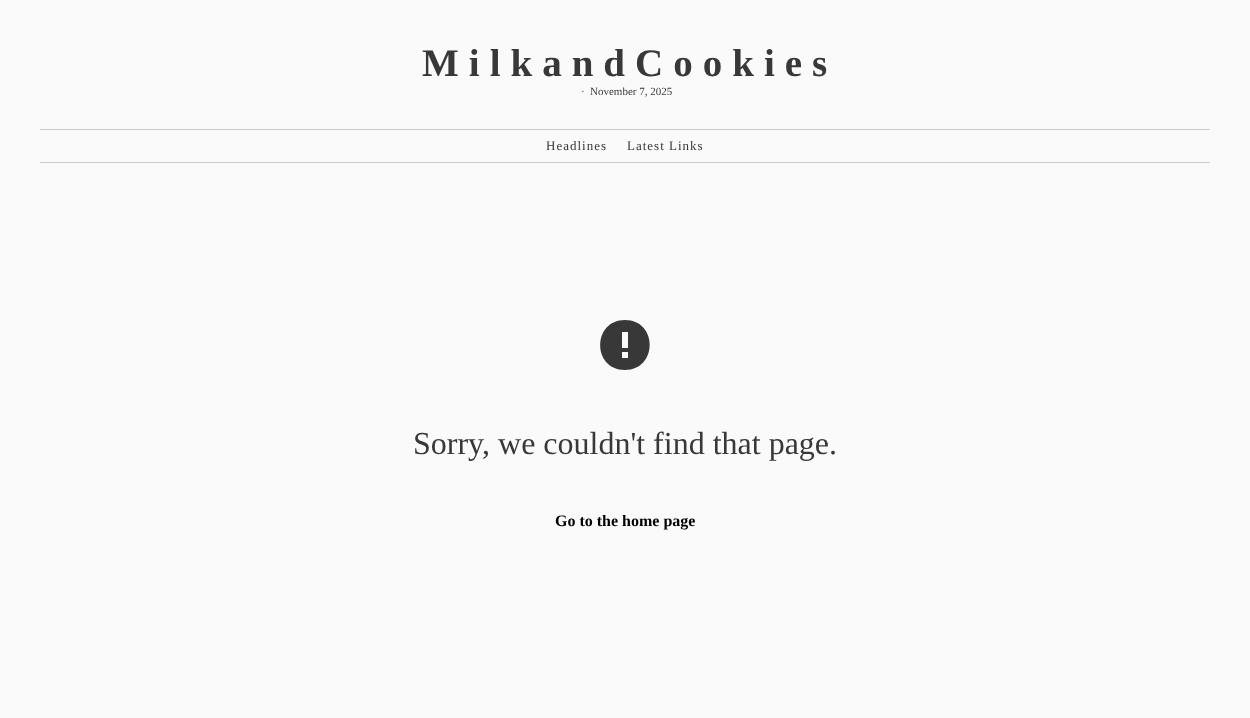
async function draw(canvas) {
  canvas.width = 1250
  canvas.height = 718
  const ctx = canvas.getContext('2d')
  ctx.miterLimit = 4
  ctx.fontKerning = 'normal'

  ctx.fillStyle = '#fafafa'
  ctx.fillRect(0, 0, 1250, 718)
  ctx.letterSpacing = '10px'
  ctx.font = 'bold 39px Liberation Serif'
  ctx.fillStyle = '#383838'
  ctx.fillText('MilkandCookies', 422, 76)
  ctx.letterSpacing = '0px'
  ctx.font = '11px Liberation Serif'
  ctx.fillText('·', 581, 95)
  ctx.fillText('November 7, 2025', 590, 95)
  ctx.fillStyle = '#ccc'
  ctx.fillRect(40, 129, 1170, 1)
  ctx.fillRect(40, 162, 1170, 1)
  ctx.letterSpacing = '1px'
  ctx.font = '13px Liberation Serif'
  ctx.fillStyle = '#383838'
  ctx.fillText('Headlines', 546, 150)
  ctx.fillText('Latest Links', 627, 150)
  ctx.beginPath()
  ctx.moveTo(625, 320)
  ctx.bezierCurveTo(592, 320, 592, 370, 625, 370)
  ctx.bezierCurveTo(658, 370, 658, 320, 625, 320)
  ctx.closePath()
  ctx.moveTo(628, 358)
  ctx.lineTo(622, 358)
  ctx.lineTo(622, 352)
  ctx.lineTo(628, 352)
  ctx.closePath()
  ctx.moveTo(628, 348)
  ctx.lineTo(622, 348)
  ctx.lineTo(622, 332)
  ctx.lineTo(628, 332)
  ctx.closePath()
  ctx.fill()
  ctx.letterSpacing = '0px'
  ctx.font = '32px Liberation Serif'
  ctx.fillText('Sorry, we couldn\'t find that page.', 413, 454)
  ctx.font = 'bold 16px Liberation Serif'
  ctx.fillStyle = '#000'
  ctx.fillText('Go to the home page', 555, 526)
}

draw(document.querySelector('canvas'))
